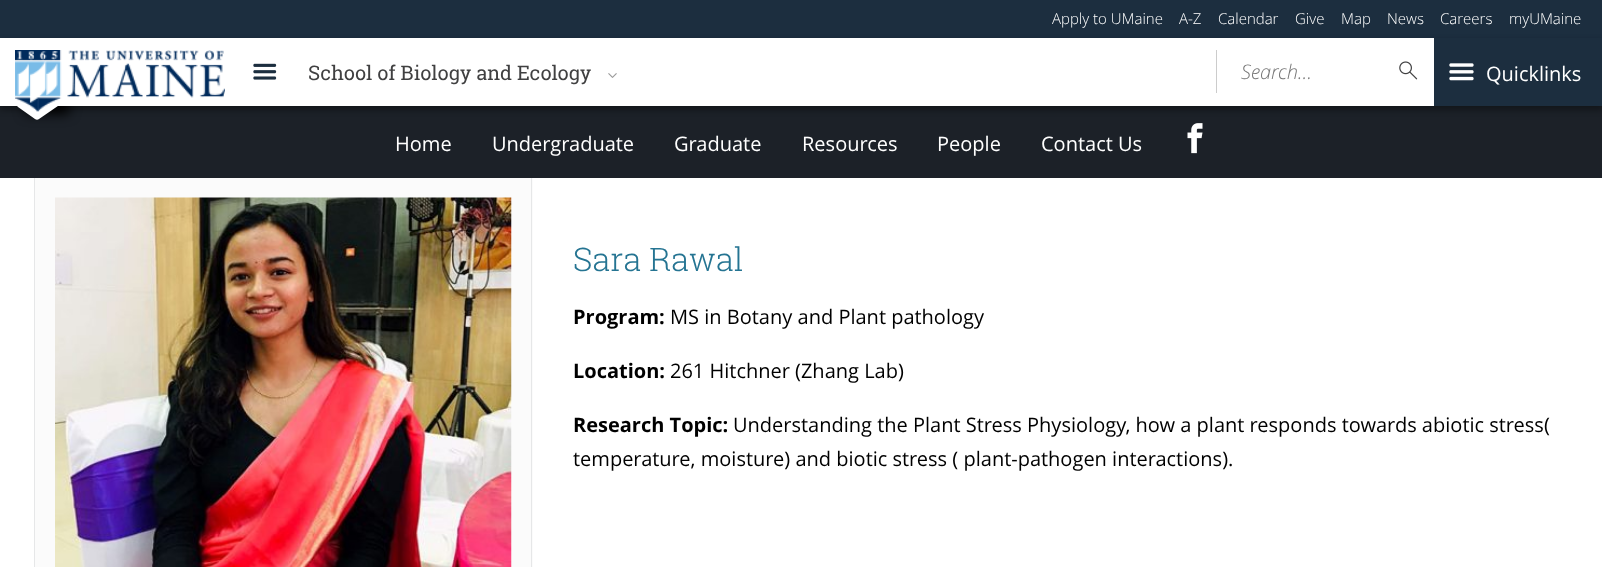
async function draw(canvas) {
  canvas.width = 1602
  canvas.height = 567
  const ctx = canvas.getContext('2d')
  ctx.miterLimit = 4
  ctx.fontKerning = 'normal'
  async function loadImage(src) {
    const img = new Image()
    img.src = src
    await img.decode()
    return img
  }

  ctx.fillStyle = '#fff'
  ctx.fillRect(0, 0, 1602, 567)
  ctx.fillStyle = '#1c2e3f'
  ctx.fillRect(0, 0, 1602, 38)
  ctx.font = '300 15px Open Sans'
  ctx.fillStyle = '#fff'
  ctx.fillText('Apply to UMaine', 1052, 24)
  ctx.fillText('A-Z', 1179, 24)
  ctx.fillText('Calendar', 1218, 24)
  ctx.fillText('Give', 1295, 24)
  ctx.fillText('Map', 1341, 24)
  ctx.fillText('News', 1387, 24)
  ctx.fillText('Careers', 1440, 24)
  ctx.fillText('myUMaine', 1509, 24)
  ctx.fillStyle = '#1c2128'
  ctx.fillRect(0, 106, 1602, 72)
  ctx.save()
  ctx.beginPath()
  ctx.moveTo(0, 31)
  ctx.lineTo(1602, 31)
  ctx.lineTo(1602, 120)
  ctx.lineTo(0, 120)
  ctx.closePath()
  ctx.moveTo(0, 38)
  ctx.lineTo(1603, 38)
  ctx.lineTo(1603, 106)
  ctx.lineTo(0, 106)
  ctx.closePath()
  ctx.clip('evenodd')
  ctx.fillStyle = '#00000059'
  ctx.filter = 'blur(3px)'
  ctx.beginPath()
  ctx.rect(0, 41, 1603, 69)
  ctx.fill()
  ctx.filter = 'none'
  ctx.restore()
  ctx.fillStyle = '#1c2e3f'
  ctx.fillRect(1434, 38, 168, 68)
  ctx.fillStyle = '#000'
  ctx.filter = 'blur(6px)'
  ctx.beginPath()
  ctx.roundRect(25, 89, 44, 25, 2.5)
  ctx.fill()
  ctx.filter = 'none'
  ctx.fillStyle = '#fff'
  ctx.beginPath()
  ctx.moveTo(18, 104)
  ctx.lineTo(49, 82)
  ctx.bezierCurveTo(50, 81, 52, 81, 54, 82)
  ctx.lineTo(71, 94)
  ctx.bezierCurveTo(72, 95, 72, 96, 71, 97)
  ctx.lineTo(39, 119)
  ctx.bezierCurveTo(38, 120, 36, 120, 35, 119)
  ctx.lineTo(18, 107)
  ctx.bezierCurveTo(17, 106, 16, 105, 18, 104)
  ctx.closePath()
  ctx.fill()
  ctx.fillRect(11, 75, 72, 31)
  ctx.drawImage(await loadImage('image0.png'), 15, 50, 210, 62)
  ctx.drawImage(await loadImage('image1.png'), 253, 63, 24, 17)
  ctx.font = '20px Roboto Slab'
  ctx.fillStyle = '#404041'
  ctx.fillText('School of Biology and Ecology', 308, 80)
  ctx.drawImage(await loadImage('image2.png'), 608, 73, 9, 5)
  ctx.fillStyle = '#ccc'
  ctx.fillRect(1216, 50, 1, 43)
  ctx.font = 'italic 300 20px Open Sans'
  ctx.fillStyle = '#757575'
  ctx.fillText('Search...', 1241, 79)
  ctx.drawImage(await loadImage('image3.png'), 1399, 61, 19, 19)
  ctx.drawImage(await loadImage('image4.png'), 1449, 63, 25, 18)
  ctx.font = '20px Open Sans'
  ctx.fillStyle = '#fff'
  ctx.fillText('Quicklinks', 1486, 81)
  ctx.fillText('Home', 395, 151)
  ctx.fillText('Undergraduate', 492, 151)
  ctx.fillText('Graduate', 674, 151)
  ctx.fillText('Resources', 802, 151)
  ctx.fillText('People', 937, 151)
  ctx.fillText('Contact Us', 1041, 151)
  ctx.drawImage(await loadImage('image5.png'), 1187, 123, 16, 31)
  ctx.fillStyle = '#fbfbfb'
  ctx.fillRect(35, 178, 498, 389)
  ctx.fillStyle = '#e6e7e8'
  ctx.fillRect(531, 178, 1, 389)
  ctx.fillRect(34, 178, 1, 389)
  ctx.drawImage(await loadImage('image6.png'), 55, 197, 457, 370)
  ctx.font = '300 32.5px Roboto Slab'
  ctx.fillStyle = '#257492'
  ctx.fillText('Sara Rawal', 573, 271)
  ctx.font = 'bold 20px Open Sans'
  ctx.fillStyle = '#000'
  ctx.fillText('Program:', 573, 324)
  ctx.font = '20px Open Sans'
  ctx.fillText('MS in Botany and Plant pathology', 670, 324)
  ctx.font = 'bold 20px Open Sans'
  ctx.fillText('Location:', 573, 378)
  ctx.font = '20px Open Sans'
  ctx.fillText('261 Hitchner (Zhang Lab)', 670, 378)
  ctx.font = 'bold 20px Open Sans'
  ctx.fillText('Research Topic:', 573, 432)
  ctx.font = '20px Open Sans'
  ctx.fillText('Understanding the Plant Stress Physiology, how a plant responds towards abiotic stress(', 733, 432)
  ctx.fillText('temperature, moisture) and biotic stress ( plant-pathogen interactions).', 573, 466)
}

draw(document.querySelector('canvas'))
